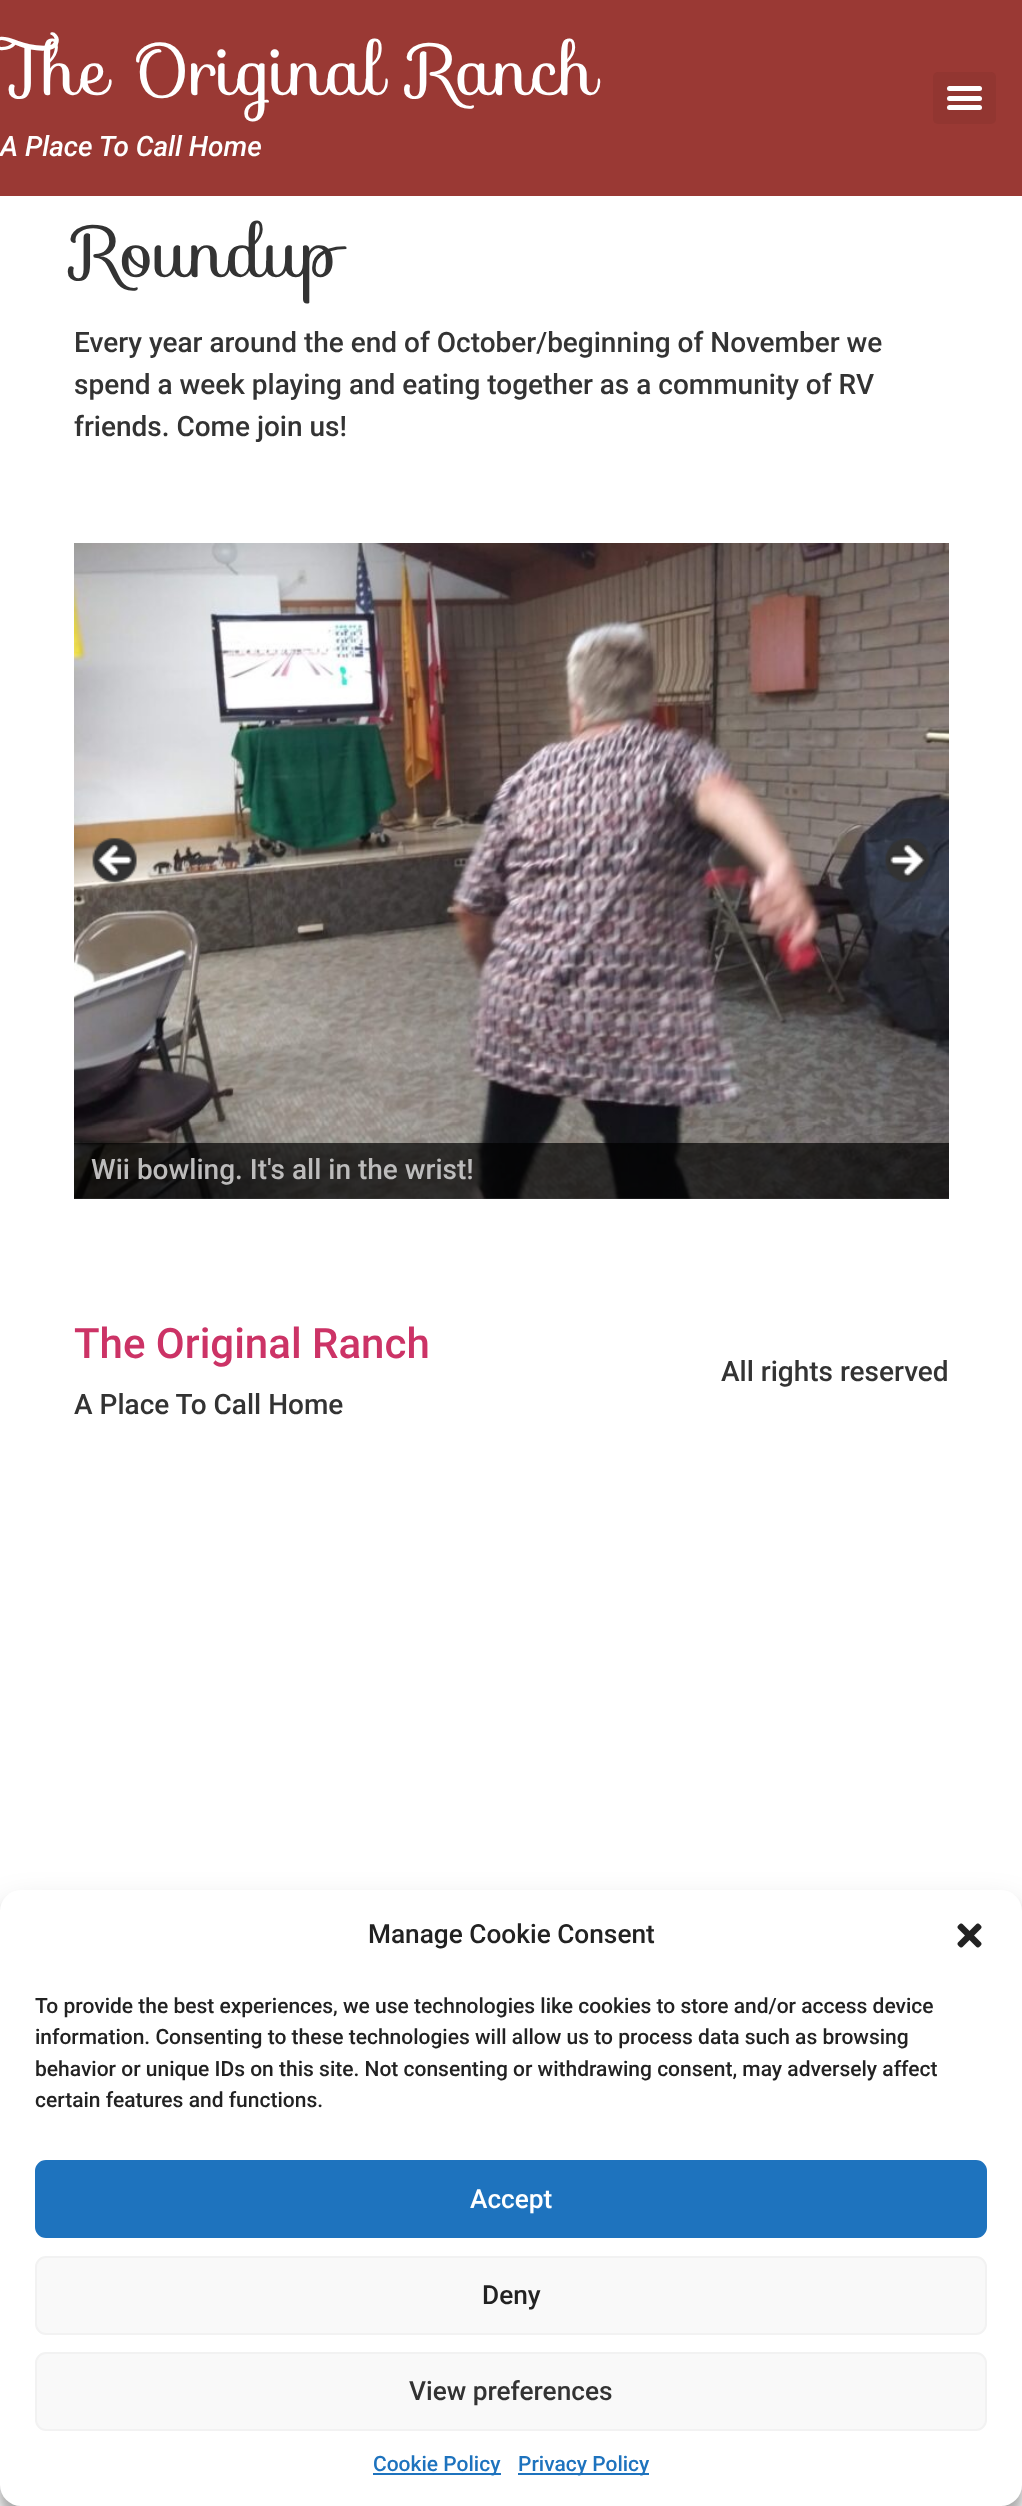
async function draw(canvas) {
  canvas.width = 1022
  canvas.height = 2506
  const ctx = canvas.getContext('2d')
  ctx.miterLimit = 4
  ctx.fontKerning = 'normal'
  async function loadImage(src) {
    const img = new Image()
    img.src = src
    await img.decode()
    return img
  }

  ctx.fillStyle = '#fff'
  ctx.fillRect(0, 0, 1022, 2506)
  ctx.fillStyle = '#9a3934'
  ctx.fillRect(0, 0, 1022, 196)
  ctx.font = '70px Sofia'
  ctx.fillStyle = '#fff'
  ctx.fillText('The Original Ranch', 0, 95)
  ctx.font = 'italic 500 28px Roboto'
  ctx.fillText('A Place To Call Home', 0, 156)
  ctx.fillStyle = '#923631'
  ctx.beginPath()
  ctx.roundRect(933, 72, 63, 52, 5)
  ctx.fill()
  ctx.fillStyle = '#fff'
  ctx.beginPath()
  ctx.roundRect(947, 96, 35, 5, 2.5)
  ctx.fill()
  ctx.beginPath()
  ctx.roundRect(947, 86, 35, 5, 2.5)
  ctx.fill()
  ctx.beginPath()
  ctx.roundRect(947, 105, 35, 5, 2.5)
  ctx.fill()
  ctx.font = '70px Sofia'
  ctx.fillStyle = '#333'
  ctx.fillText('Roundup', 74, 277)
  ctx.font = '500 28px Roboto'
  ctx.fillText('Every year around the end of October/beginning of November we', 74, 352)
  ctx.fillText('spend a week playing and eating together as a community of RV', 74, 394)
  ctx.fillText('friends. Come join us!', 74, 436)
  ctx.drawImage(await loadImage('image2.png'), 74, 543, 875, 656)
  ctx.drawImage(await loadImage('image0.png'), 92, 837, 45, 46)
  ctx.drawImage(await loadImage('image1.png'), 885, 838, 45, 45)
  ctx.fillStyle = '#000000b3'
  ctx.fillRect(74, 1143, 875, 56)
  ctx.fillStyle = '#bdbcbc'
  ctx.fillText('Wii bowling. It\'s all in the wrist!', 91, 1179)
  ctx.font = '500 42px Roboto'
  ctx.fillStyle = '#c36'
  ctx.fillText('The Original Ranch', 74, 1358)
  ctx.font = '500 28px Roboto'
  ctx.fillStyle = '#333'
  ctx.fillText('A Place To Call Home', 74, 1414)
  ctx.fillText('All rights reserved', 721, 1381)
  ctx.fillStyle = '#0000003b'
  ctx.filter = 'blur(5px)'
  ctx.beginPath()
  ctx.roundRect(0, 1901, 1022, 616, 21)
  ctx.fill()
  ctx.filter = 'none'
  ctx.fillStyle = '#00000030'
  ctx.filter = 'blur(17.5px)'
  ctx.beginPath()
  ctx.roundRect(0, 1908, 1022, 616, 21)
  ctx.fill()
  ctx.filter = 'none'
  ctx.fillStyle = '#fff'
  ctx.beginPath()
  ctx.roundRect(0, 1890, 1022, 616, 21)
  ctx.fill()
  ctx.font = '500 26.25px Roboto'
  ctx.fillStyle = '#222'
  ctx.fillText('Manage Cookie Consent', 368, 1943)
  ctx.drawImage(await loadImage('image3.png'), 957, 1923, 25, 25)
  ctx.font = '500 21px Roboto'
  ctx.fillText('To provide the best experiences, we use technologies like cookies to store and/or access device', 35, 2013)
  ctx.fillText('information. Consenting to these technologies will allow us to process data such as browsing', 35, 2044)
  ctx.fillText('behavior or unique IDs on this site. Not consenting or withdrawing consent, may adversely affect', 35, 2076)
  ctx.fillText('certain features and functions.', 35, 2107)
  ctx.fillStyle = '#1e73be'
  ctx.beginPath()
  ctx.roundRect(36, 2161, 950, 76, 10)
  ctx.fill()
  ctx.strokeStyle = '#1e73be'
  ctx.lineWidth = 2
  ctx.stroke()
  ctx.font = '500 26.25px Roboto'
  ctx.fillStyle = '#fff'
  ctx.fillText('Accept', 470, 2208)
  ctx.fillStyle = '#f9f9f9'
  ctx.beginPath()
  ctx.roundRect(36, 2257, 950, 77, 10)
  ctx.fill()
  ctx.strokeStyle = '#f2f2f2'
  ctx.stroke()
  ctx.fillStyle = '#222'
  ctx.fillText('Deny', 482, 2304)
  ctx.fillStyle = '#f9f9f9'
  ctx.beginPath()
  ctx.roundRect(36, 2353, 950, 77, 10)
  ctx.fill()
  ctx.stroke()
  ctx.fillStyle = '#333'
  ctx.fillText('View preferences', 409, 2400)
  ctx.fillStyle = '#1e73be'
  ctx.fillRect(373, 2473, 128, 2)
  ctx.font = '500 21px Roboto'
  ctx.fillText('Cookie Policy', 373, 2471)
  ctx.fillRect(518, 2473, 131, 2)
  ctx.fillText('Privacy Policy', 518, 2471)
}

draw(document.querySelector('canvas'))
